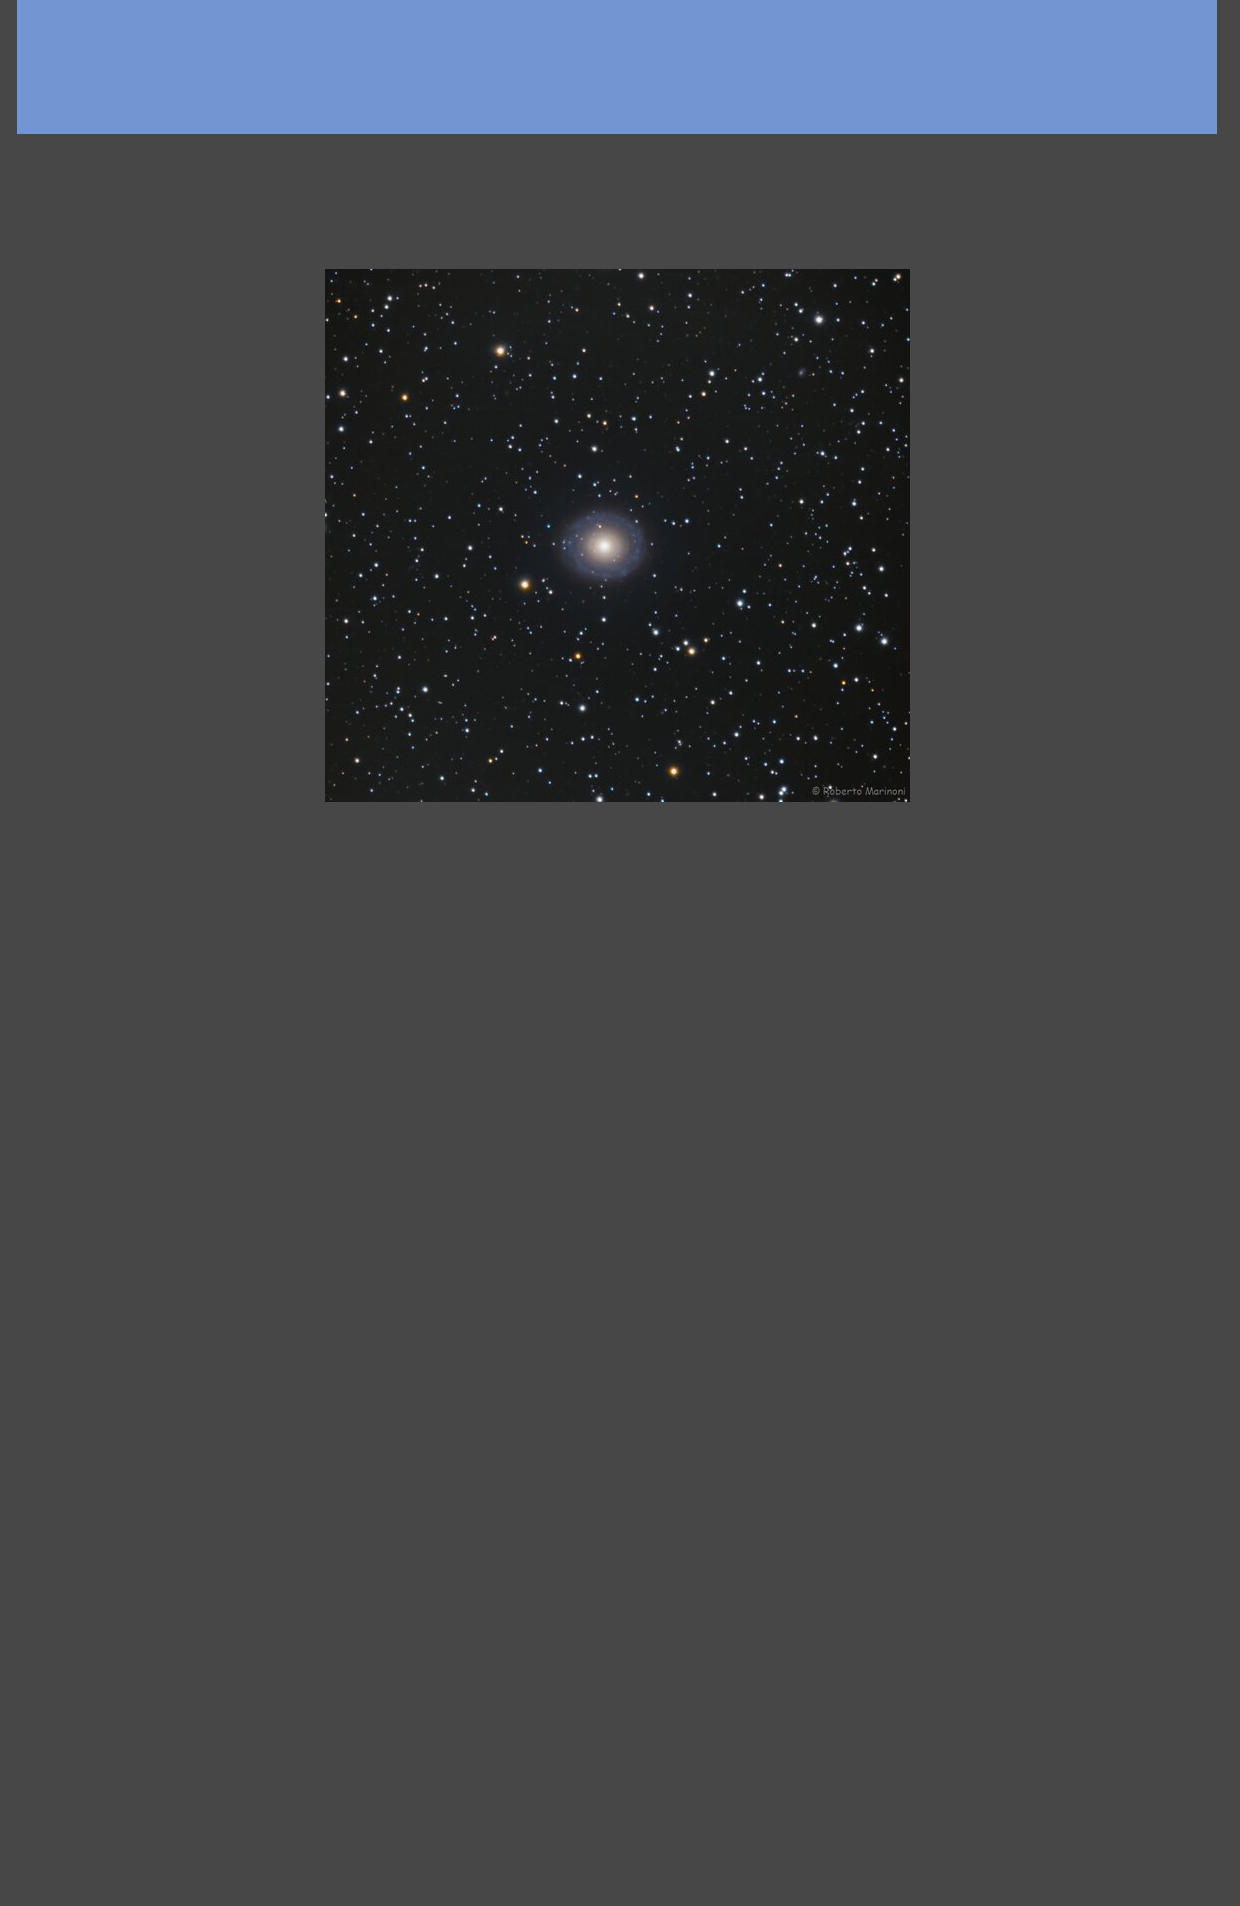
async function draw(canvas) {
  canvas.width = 1240
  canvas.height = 1906
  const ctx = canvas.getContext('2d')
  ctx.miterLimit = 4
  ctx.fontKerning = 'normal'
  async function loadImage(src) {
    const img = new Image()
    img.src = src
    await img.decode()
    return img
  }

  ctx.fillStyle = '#474747'
  ctx.fillRect(0, 0, 1240, 1906)
  ctx.fillStyle = '#7196d1'
  ctx.fillRect(17, 0, 1200, 134)
  ctx.drawImage(await loadImage('image0.png'), 325, 269, 585, 533)
}

draw(document.querySelector('canvas'))
